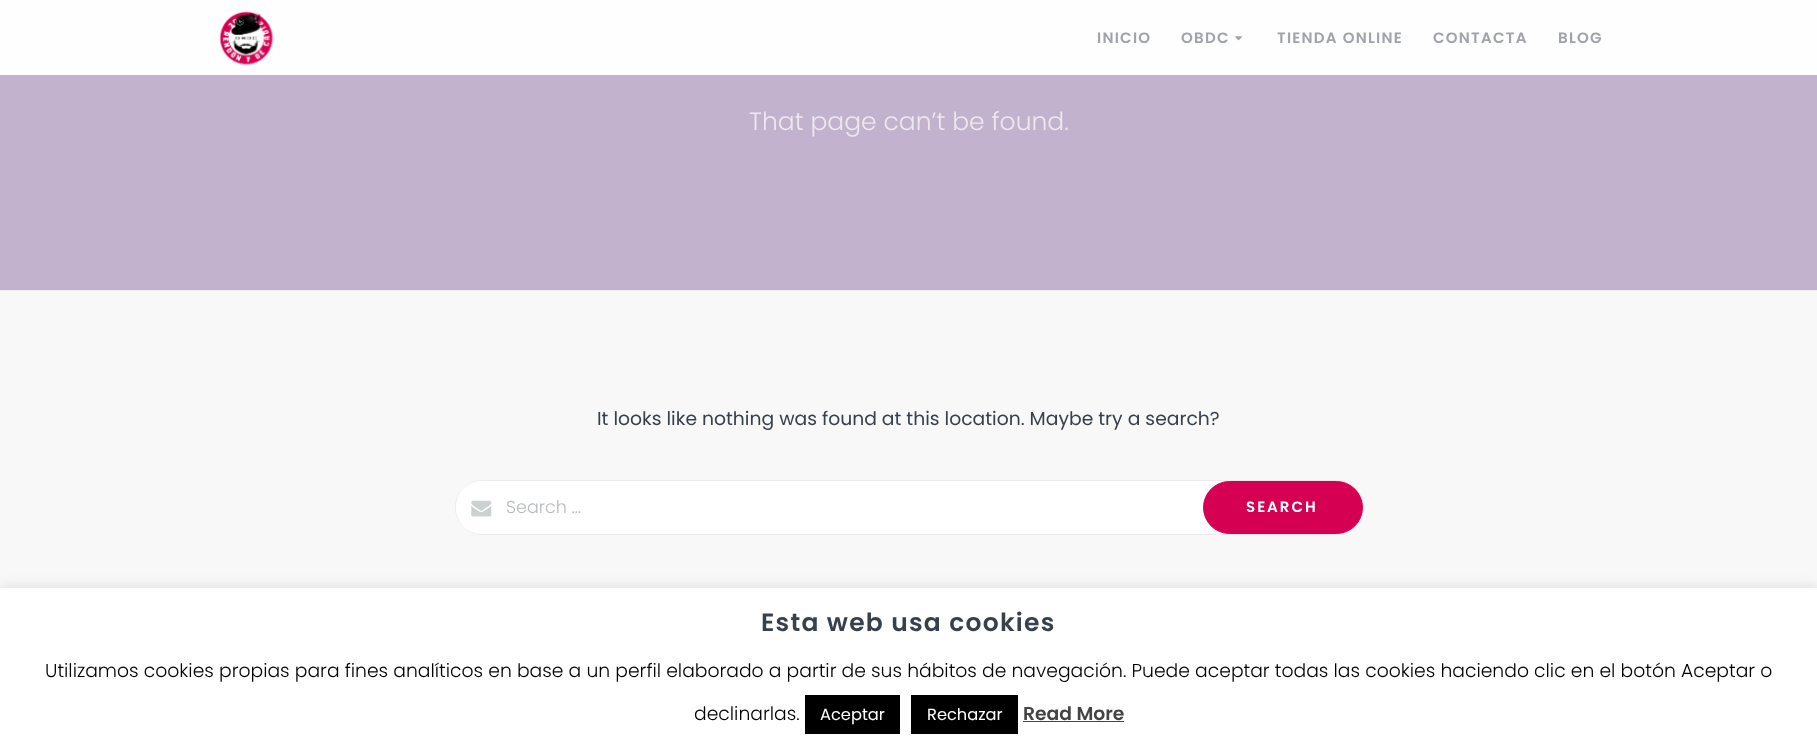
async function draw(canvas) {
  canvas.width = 1817
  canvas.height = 748
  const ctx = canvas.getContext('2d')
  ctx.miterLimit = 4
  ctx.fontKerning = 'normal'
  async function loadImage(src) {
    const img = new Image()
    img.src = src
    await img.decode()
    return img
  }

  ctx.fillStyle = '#f8f8f8'
  ctx.fillRect(0, 0, 1817, 748)
  ctx.fillStyle = '#c2b2cd'
  ctx.fillRect(0, 0, 1817, 290)
  ctx.fillStyle = '#fffffffa'
  ctx.fillRect(0, 0, 1817, 75)
  ctx.drawImage(await loadImage('image0.png'), 219, 11, 55, 54)
  ctx.letterSpacing = '1.25px'
  ctx.font = '600 15px Poppins'
  ctx.fillStyle = '#a0a3a9'
  ctx.fillText('INICIO', 1097, 43)
  ctx.fillText('OBDC', 1181, 43)
  ctx.drawImage(await loadImage('image1.png'), 1235, 36, 8, 5)
  ctx.fillText('TIENDA ONLINE', 1277, 43)
  ctx.fillText('CONTACTA', 1433, 43)
  ctx.fillText('BLOG', 1558, 43)
  ctx.letterSpacing = '0px'
  ctx.font = '300 25px Poppins'
  ctx.fillStyle = '#ede8f0'
  ctx.fillText('That page can’t be found.', 749, 130)
  ctx.fillStyle = '#ebebeb'
  ctx.fillRect(0, 290, 1817, 1)
  ctx.font = '18.75px Poppins'
  ctx.fillStyle = '#37404d'
  ctx.fillText('It looks like nothing was found at this location. Maybe try a search?', 597, 425)
  ctx.fillStyle = '#fff'
  ctx.beginPath()
  ctx.roundRect(455.5, 480.5, 908, 54, 27)
  ctx.fill()
  ctx.strokeStyle = '#ebebeb'
  ctx.stroke()
  ctx.fillStyle = '#ffffffb3'
  ctx.beginPath()
  ctx.roundRect(456, 481, 50, 53, 25)
  ctx.fill()
  ctx.drawImage(await loadImage('image2.png'), 471, 500, 21, 17)
  ctx.font = '300 17.5px Poppins'
  ctx.fillStyle = '#b7bbbd'
  ctx.fillText('Search …', 506, 513)
  ctx.fillStyle = '#d60053'
  ctx.beginPath()
  ctx.roundRect(1203.5, 481.5, 159, 52, 26)
  ctx.fill()
  ctx.strokeStyle = '#d60053'
  ctx.stroke()
  ctx.letterSpacing = '2px'
  ctx.font = '600 15px Poppins'
  ctx.fillStyle = '#fff'
  ctx.fillText('SEARCH', 1246, 512)
  ctx.fillStyle = '#acabab4d'
  ctx.filter = 'blur(6px)'
  ctx.beginPath()
  ctx.rect(0, 586, 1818, 162)
  ctx.fill()
  ctx.filter = 'none'
  ctx.fillStyle = '#fff'
  ctx.fillRect(0, 588, 1817, 160)
  ctx.letterSpacing = '1.25px'
  ctx.font = '600 25px Poppins'
  ctx.fillStyle = '#37404d'
  ctx.fillText('Esta web usa cookies', 761, 631)
  ctx.letterSpacing = '0px'
  ctx.font = '300 18.75px Poppins'
  ctx.fillStyle = '#000'
  ctx.fillText('Utilizamos cookies propias para fines analíticos en base a un perfil elaborado a partir de sus hábitos de navegación. Puede aceptar todas las cookies haciendo clic en el botón Aceptar o', 45, 677)
  ctx.fillText('declinarlas.', 694, 720)
  ctx.fillRect(805, 695, 95, 39)
  ctx.font = '16.25px Poppins'
  ctx.fillStyle = '#fff'
  ctx.fillText('Aceptar', 820, 720)
  ctx.fillStyle = '#000'
  ctx.fillRect(911, 695, 107, 39)
  ctx.fillStyle = '#fff'
  ctx.fillText('Rechazar', 927, 720)
  ctx.font = '600 18.75px Poppins'
  ctx.fillStyle = '#444'
  ctx.fillText('Read More', 1023, 720)
  ctx.fillRect(1023, 721, 101, 1)
}

draw(document.querySelector('canvas'))
